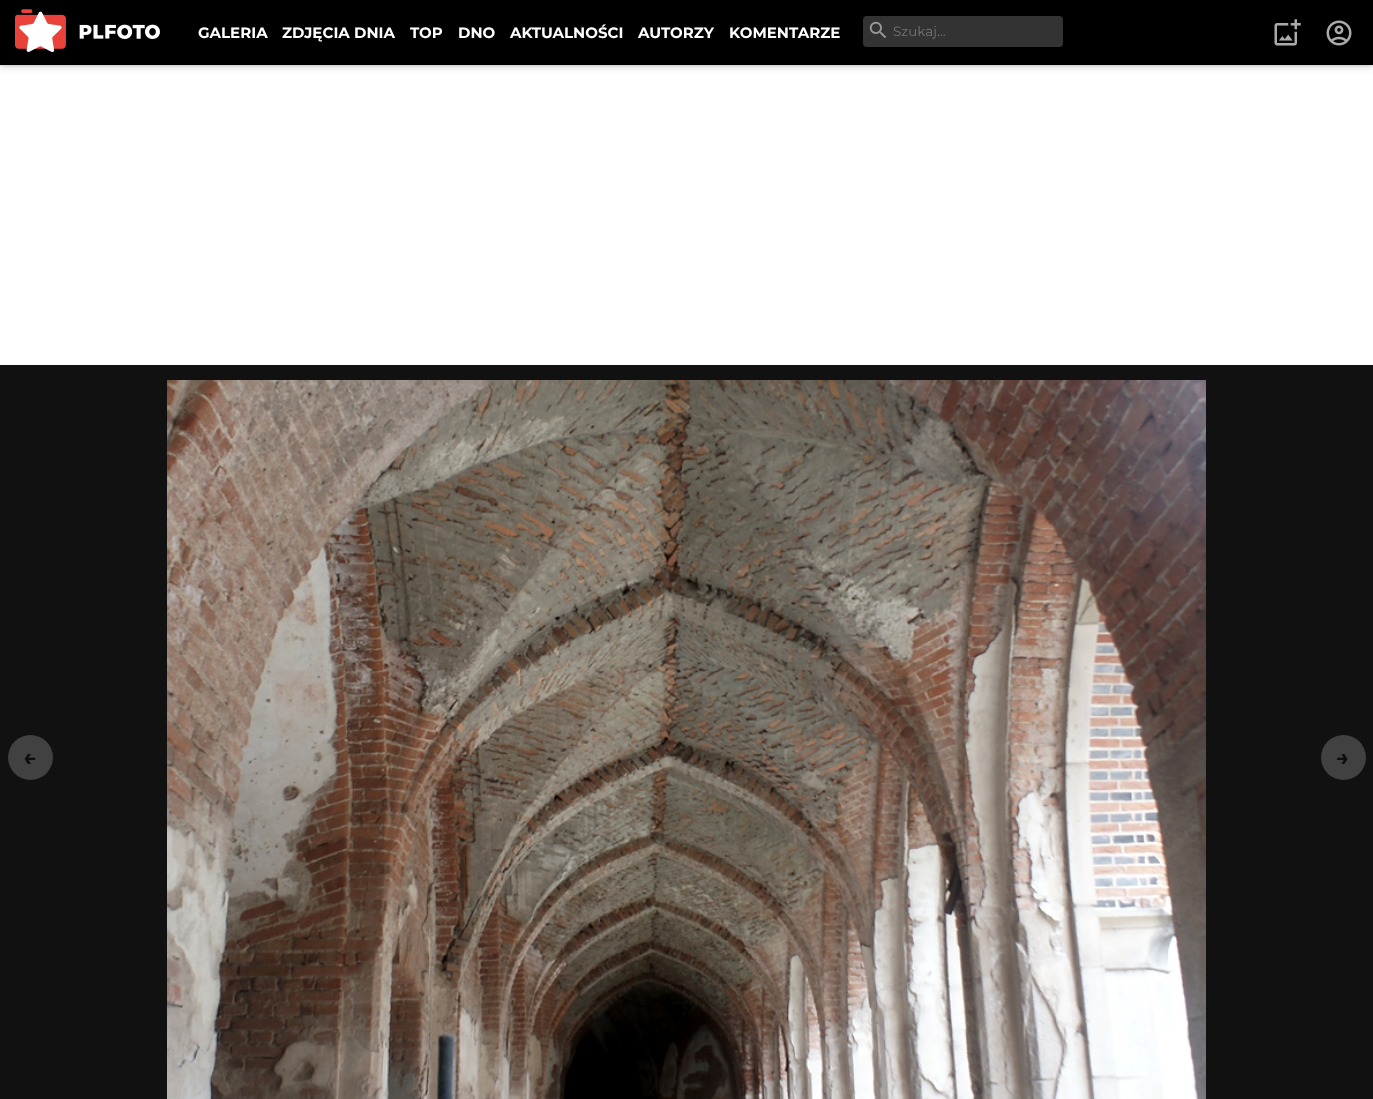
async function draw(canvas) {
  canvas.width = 1373
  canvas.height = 1099
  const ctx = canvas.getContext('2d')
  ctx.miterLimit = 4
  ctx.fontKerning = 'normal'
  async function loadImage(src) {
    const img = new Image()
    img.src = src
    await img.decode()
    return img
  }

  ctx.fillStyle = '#fff'
  ctx.fillRect(0, 0, 1373, 1099)
  ctx.fillStyle = '#0000001c'
  ctx.filter = 'blur(1px)'
  ctx.beginPath()
  ctx.rect(0, 1, 1373, 65)
  ctx.fill()
  ctx.filter = 'none'
  ctx.fillStyle = '#00000021'
  ctx.filter = 'blur(3.5px)'
  ctx.beginPath()
  ctx.rect(0, 3, 1373, 65)
  ctx.fill()
  ctx.filter = 'none'
  ctx.fillStyle = '#000'
  ctx.fillRect(0, 0, 1373, 65)
  ctx.drawImage(await loadImage('image0.png'), 15, 9, 145, 43)
  ctx.font = 'bold 15px Montserrat'
  ctx.fillStyle = '#fff'
  ctx.fillText('GALERIA', 198, 38)
  ctx.fillText('ZDJĘCIA DNIA', 282, 38)
  ctx.fillText('TOP', 410, 38)
  ctx.fillText('DNO', 458, 38)
  ctx.fillText('AKTUALNOŚCI', 510, 38)
  ctx.fillText('AUTORZY', 638, 38)
  ctx.fillText('KOMENTARZE', 729, 38)
  ctx.fillStyle = '#333'
  ctx.beginPath()
  ctx.roundRect(863, 16, 200, 31, 4)
  ctx.fill()
  ctx.drawImage(await loadImage('image1.png'), 869, 21, 18, 18)
  ctx.font = '13.5px Montserrat'
  ctx.fillStyle = '#757575'
  ctx.fillText('Szukaj...', 893, 36)
  ctx.drawImage(await loadImage('image2.png'), 1274, 19, 27, 27)
  ctx.drawImage(await loadImage('image3.png'), 1326, 20, 26, 26)
  ctx.fillStyle = '#111'
  ctx.fillRect(0, 365, 1373, 734)
  ctx.fillStyle = '#414141'
  ctx.beginPath()
  ctx.arc(30.5, 757.5, 22.5, 0, 2 * Math.PI)
  ctx.fill()
  ctx.font = 'bold 22px Montserrat'
  ctx.fillStyle = '#0e0e0e'
  ctx.fillText('←', 23, 765)
  ctx.drawImage(await loadImage('image4.png'), 167, 380, 1039, 719)
  ctx.fillStyle = '#414141'
  ctx.beginPath()
  ctx.arc(1343.5, 757.5, 22.5, 0, 2 * Math.PI)
  ctx.fill()
  ctx.fillStyle = '#0e0e0e'
  ctx.fillText('→', 1336, 765)
}

draw(document.querySelector('canvas'))
